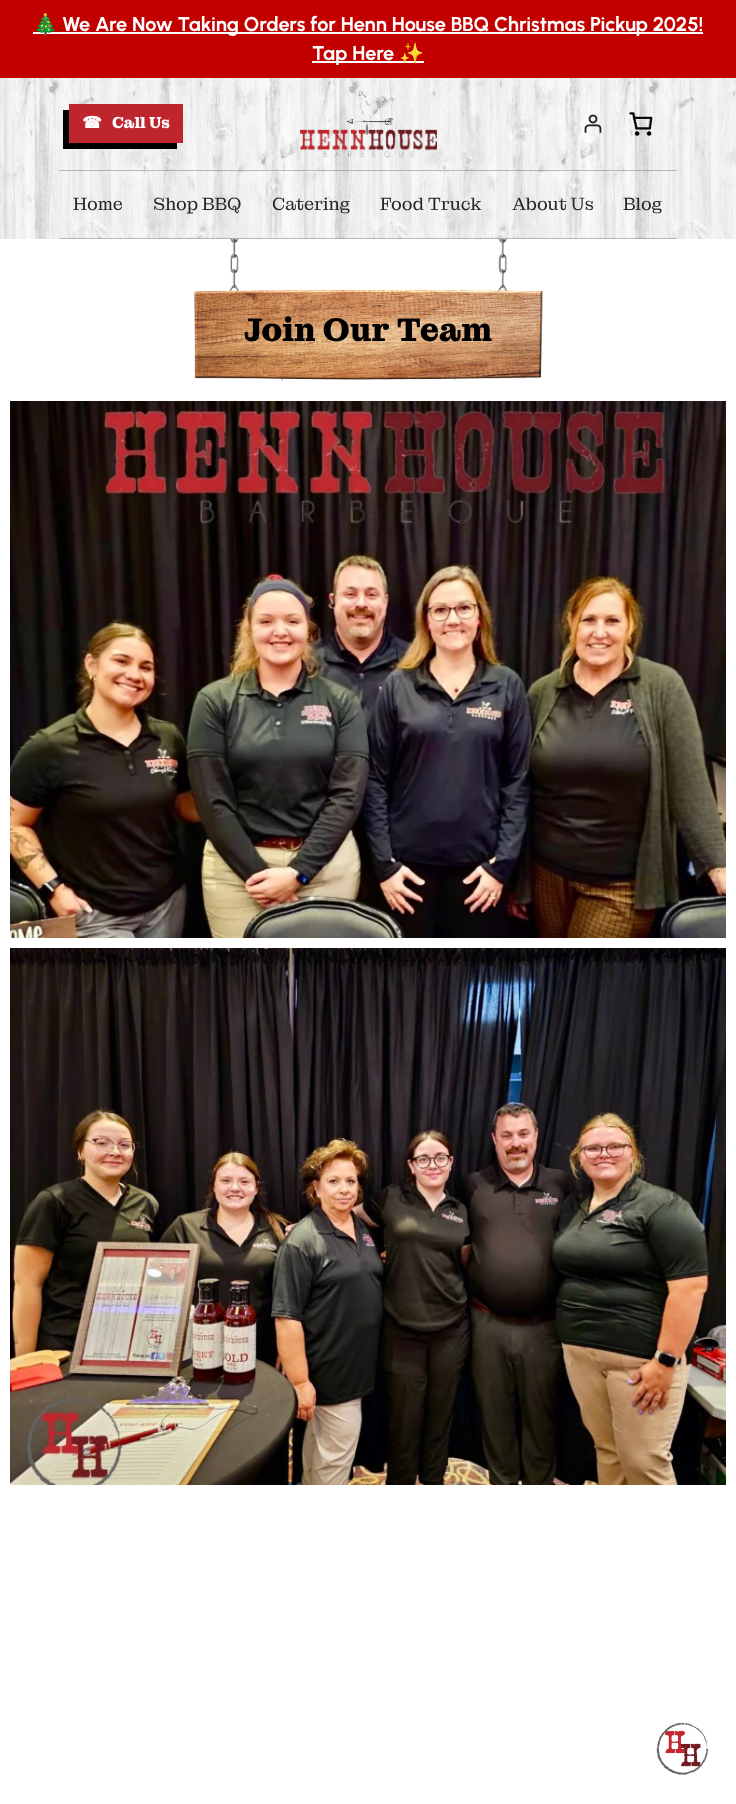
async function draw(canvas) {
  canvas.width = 736
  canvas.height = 1804
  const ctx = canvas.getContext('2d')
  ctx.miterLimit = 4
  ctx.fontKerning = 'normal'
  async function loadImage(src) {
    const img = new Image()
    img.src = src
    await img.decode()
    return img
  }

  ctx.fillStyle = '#fff'
  ctx.fillRect(0, 0, 736, 1804)
  ctx.fillStyle = '#c20000'
  ctx.fillRect(0, 0, 736, 78)
  ctx.fillStyle = '#fff'
  ctx.fillRect(33, 32, 670, 2)
  ctx.font = 'bold 20px Noto Color Emoji'
  ctx.fillText('🎄', 33, 31)
  ctx.font = 'bold 20px Urbanist'
  ctx.fillText('We Are Now Taking Orders for Henn House BBQ Christmas Pickup 2025!', 62, 31)
  ctx.fillRect(312, 61, 112, 2)
  ctx.fillText('Tap Here', 312, 60)
  ctx.font = 'bold 20px Noto Color Emoji'
  ctx.fillText('✨', 399, 60)
  ctx.drawImage(await loadImage('image0.png'), 0, 78, 736, 161)
  ctx.fillStyle = '#000'
  ctx.beginPath()
  ctx.moveTo(63, 110)
  ctx.lineTo(63, 149)
  ctx.lineTo(177, 149)
  ctx.lineTo(177, 143)
  ctx.lineTo(69, 143)
  ctx.lineTo(69, 110)
  ctx.closePath()
  ctx.fill()
  ctx.fillStyle = '#bf252d'
  ctx.fillRect(69, 104, 114, 39)
  ctx.font = 'bold 16px DejaVu Sans'
  ctx.fillStyle = '#fff'
  ctx.fillText('☎', 82, 128)
  ctx.font = 'bold 16px Montagu Slab'
  ctx.fillText('Call Us', 112, 128)
  ctx.drawImage(await loadImage('image1.png'), 300, 91, 137, 67)
  ctx.drawImage(await loadImage('image2.png'), 584, 114, 18, 19)
  ctx.drawImage(await loadImage('image3.png'), 629, 112, 24, 24)
  ctx.fillStyle = '#11111140'
  ctx.fillRect(59, 170, 618, 1)
  ctx.font = '18px Montagu Slab'
  ctx.fillStyle = '#212529'
  ctx.fillText('Home', 73, 210)
  ctx.fillText('Shop BBQ', 153, 210)
  ctx.fillText('Catering', 272, 210)
  ctx.fillText('Food Truck', 380, 210)
  ctx.fillText('About Us', 512, 210)
  ctx.fillText('Blog', 623, 210)
  ctx.fillStyle = '#11111140'
  ctx.fillRect(59, 238, 618, 1)
  ctx.drawImage(await loadImage('image4.png'), 194, 239, 349, 142)
  ctx.font = 'bold 33px Montagu Slab'
  ctx.fillStyle = '#000'
  ctx.fillText('Join Our Team', 244, 341)
  ctx.drawImage(await loadImage('image5.png'), 10, 401, 716, 537)
  ctx.drawImage(await loadImage('image6.png'), 10, 948, 716, 537)
  ctx.drawImage(await loadImage('image7.png'), 656, 1722, 53, 53)
}

draw(document.querySelector('canvas'))
